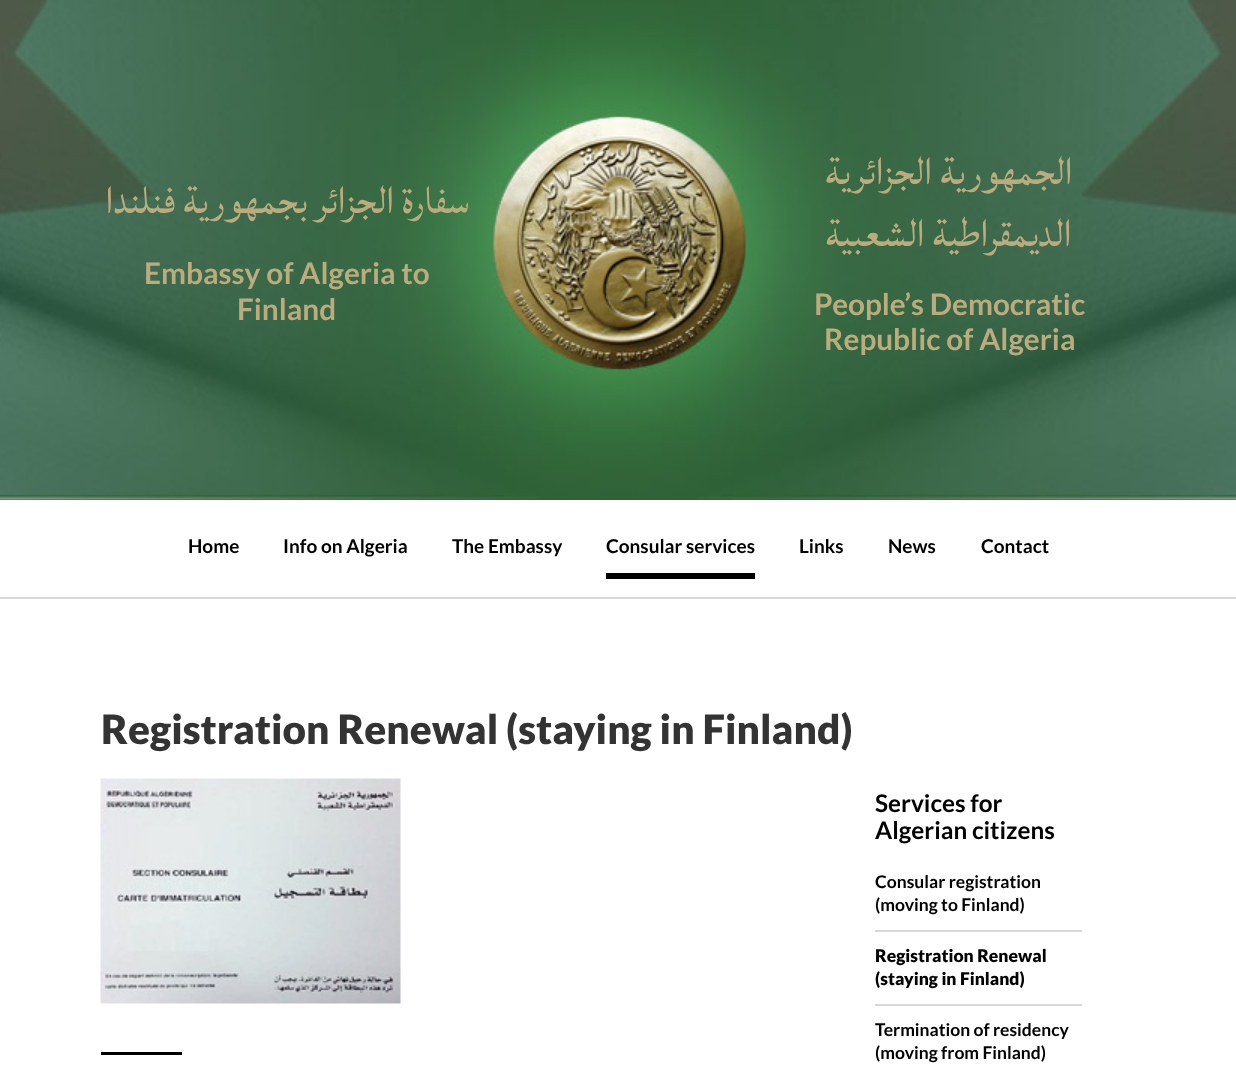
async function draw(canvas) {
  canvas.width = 1236
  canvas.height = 1066
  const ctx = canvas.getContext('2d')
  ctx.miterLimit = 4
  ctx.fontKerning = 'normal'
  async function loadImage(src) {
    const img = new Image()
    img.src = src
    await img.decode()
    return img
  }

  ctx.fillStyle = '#2e6035'
  ctx.fillRect(0, 0, 1236, 1066)
  ctx.drawImage(await loadImage('image0.png'), 0, 0, 1236, 500)
  ctx.direction = 'rtl'
  ctx.font = '51.25px Lateef'
  ctx.fillStyle = '#bbac7e'
  ctx.fillText('سفارة الجزائر بجمهورية فنلندا', 469, 213)
  ctx.direction = 'ltr'
  ctx.font = 'bold 29.75px Lato'
  ctx.fillText('Embassy of Algeria to', 144, 284)
  ctx.fillText('Finland', 237, 320)
  ctx.direction = 'rtl'
  ctx.font = '51.25px Lateef'
  ctx.fillText('الجمهورية الجزائرية', 1073, 184)
  ctx.fillText('الديمقراطية الشعبية', 1072, 246)
  ctx.direction = 'ltr'
  ctx.font = 'bold 29.75px Lato'
  ctx.fillText('People’s Democratic', 814, 315)
  ctx.fillText('Republic of Algeria', 824, 350)
  ctx.fillStyle = '#fff'
  ctx.fillRect(0, 500, 1236, 97)
  ctx.fillStyle = '#d8d8d8'
  ctx.fillRect(0, 597, 1236, 2)
  ctx.font = 'bold 19px Lato'
  ctx.fillStyle = '#000'
  ctx.fillText('Home', 188, 553)
  ctx.fillText('Info on Algeria', 283, 553)
  ctx.fillText('The Embassy', 452, 553)
  ctx.fillRect(606, 573, 149, 6)
  ctx.fillText('Consular services', 606, 553)
  ctx.fillText('Links', 799, 553)
  ctx.fillText('News', 888, 553)
  ctx.fillText('Contact', 981, 553)
  ctx.fillStyle = '#fff'
  ctx.fillRect(0, 599, 1236, 467)
  ctx.font = '900 40.5px Lato'
  ctx.fillStyle = '#333'
  ctx.fillText('Registration Renewal (staying in Finland)', 101, 744)
  ctx.drawImage(await loadImage('image1.png'), 100, 778, 301, 226)
  ctx.fillStyle = '#000'
  ctx.fillRect(101, 1052, 81, 3)
  ctx.font = 'bold 24.25px Lato'
  ctx.fillText('Services for', 875, 812)
  ctx.fillText('Algerian citizens', 875, 839)
  ctx.fillStyle = '#d8d8d8'
  ctx.fillRect(875, 930, 207, 2)
  ctx.font = 'bold 17.5px Lato'
  ctx.fillStyle = '#000'
  ctx.fillText('Consular registration', 875, 888)
  ctx.fillText('(moving to Finland)', 875, 911)
  ctx.fillStyle = '#d8d8d8'
  ctx.fillRect(875, 1004, 207, 2)
  ctx.font = '900 17.5px Lato'
  ctx.fillStyle = '#000'
  ctx.fillText('Registration Renewal', 875, 962)
  ctx.fillText('(staying in Finland)', 875, 985)
  ctx.font = 'bold 17.5px Lato'
  ctx.fillText('Termination of residency', 875, 1036)
  ctx.fillText('(moving from Finland)', 875, 1059)
}

draw(document.querySelector('canvas'))
